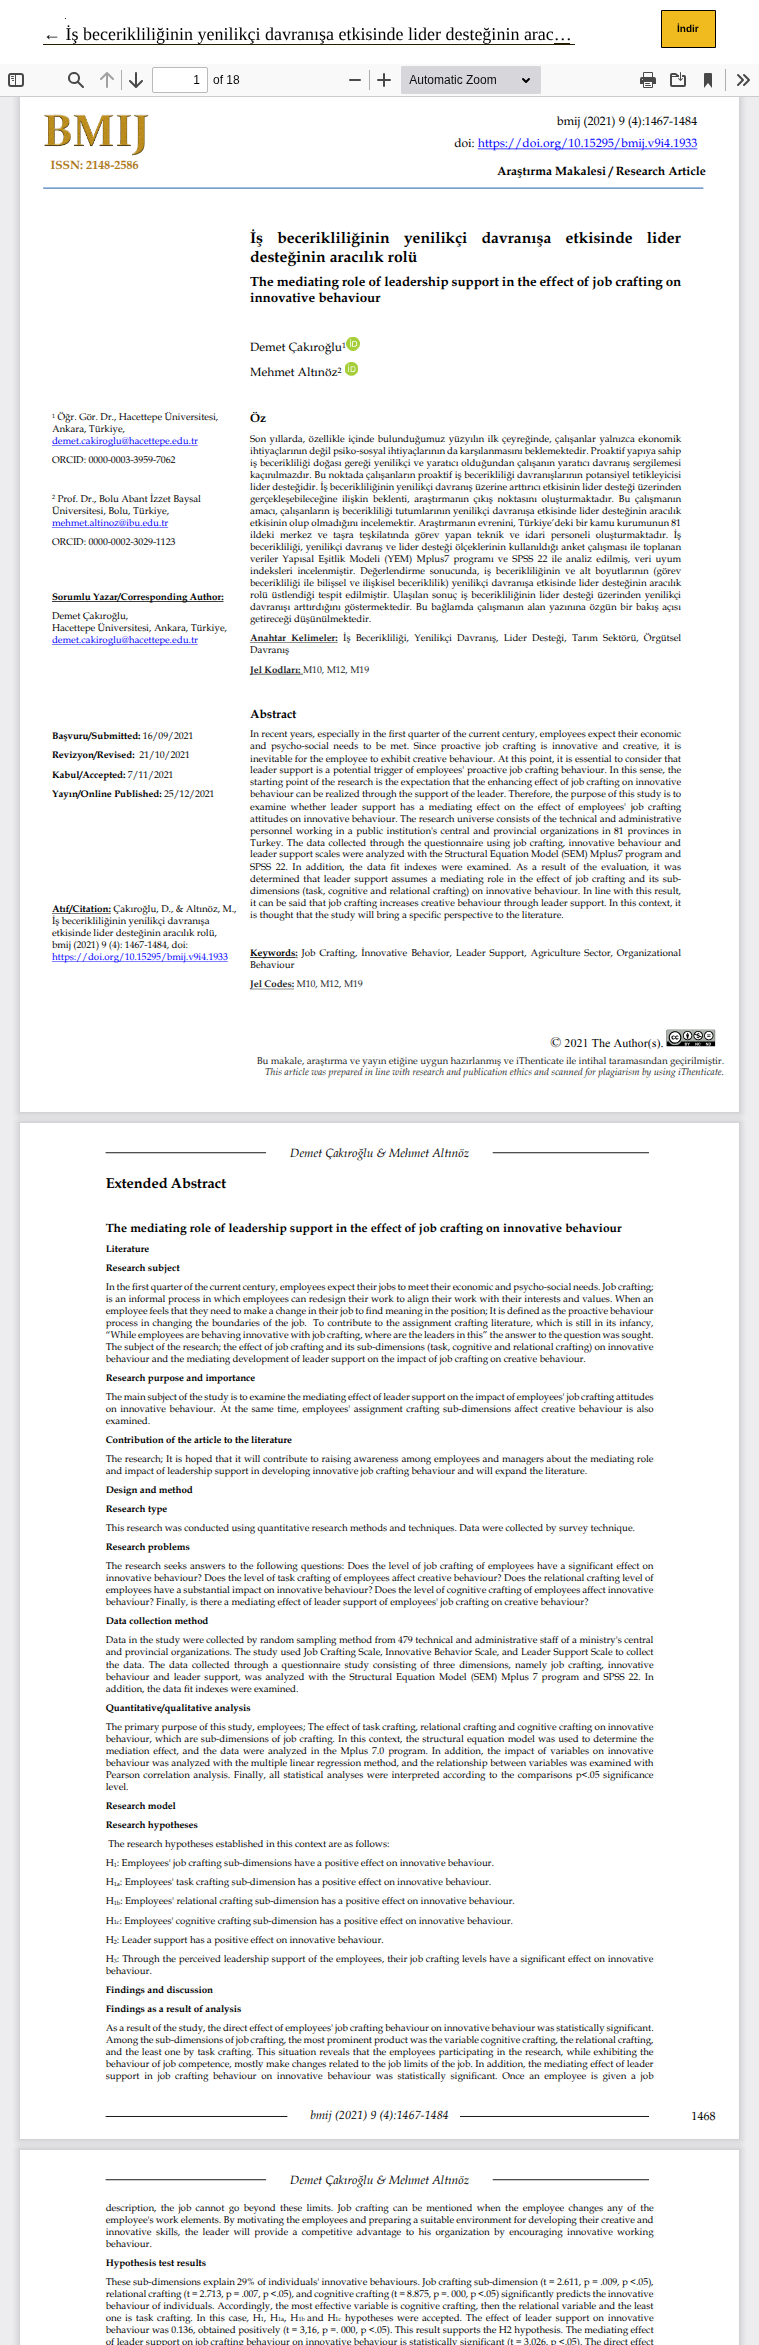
async function draw(canvas) {
  canvas.width = 759
  canvas.height = 2345
  const ctx = canvas.getContext('2d')
  ctx.miterLimit = 4
  ctx.fontKerning = 'normal'
  async function loadImage(src) {
    const img = new Image()
    img.src = src
    await img.decode()
    return img
  }

  ctx.fillStyle = '#fff'
  ctx.fillRect(0, 0, 759, 2345)
  ctx.fillStyle = '#261d03'
  ctx.fillRect(554, 43, 16, 1)
  ctx.font = '18px Liberation Serif'
  ctx.fillStyle = '#000'
  ctx.fillText('← İş becerikliliğinin yenilikçi davranışa etkisinde lider desteğinin arac…', 43, 40)
  ctx.fillStyle = '#261d03'
  ctx.fillRect(43, 44, 532, 1)
  ctx.fillRect(65, 18, 1, 1)
  ctx.fillStyle = '#f0bb1e'
  ctx.beginPath()
  ctx.rect(661.5, 10.5, 54, 37)
  ctx.fill()
  ctx.strokeStyle = '#000'
  ctx.stroke()
  ctx.font = 'bold 10px Liberation Sans'
  ctx.fillStyle = '#000'
  ctx.fillText('İndir', 677, 32)
  ctx.drawImage(await loadImage('image0.png'), 0, 64, 759, 2281)
}

draw(document.querySelector('canvas'))
